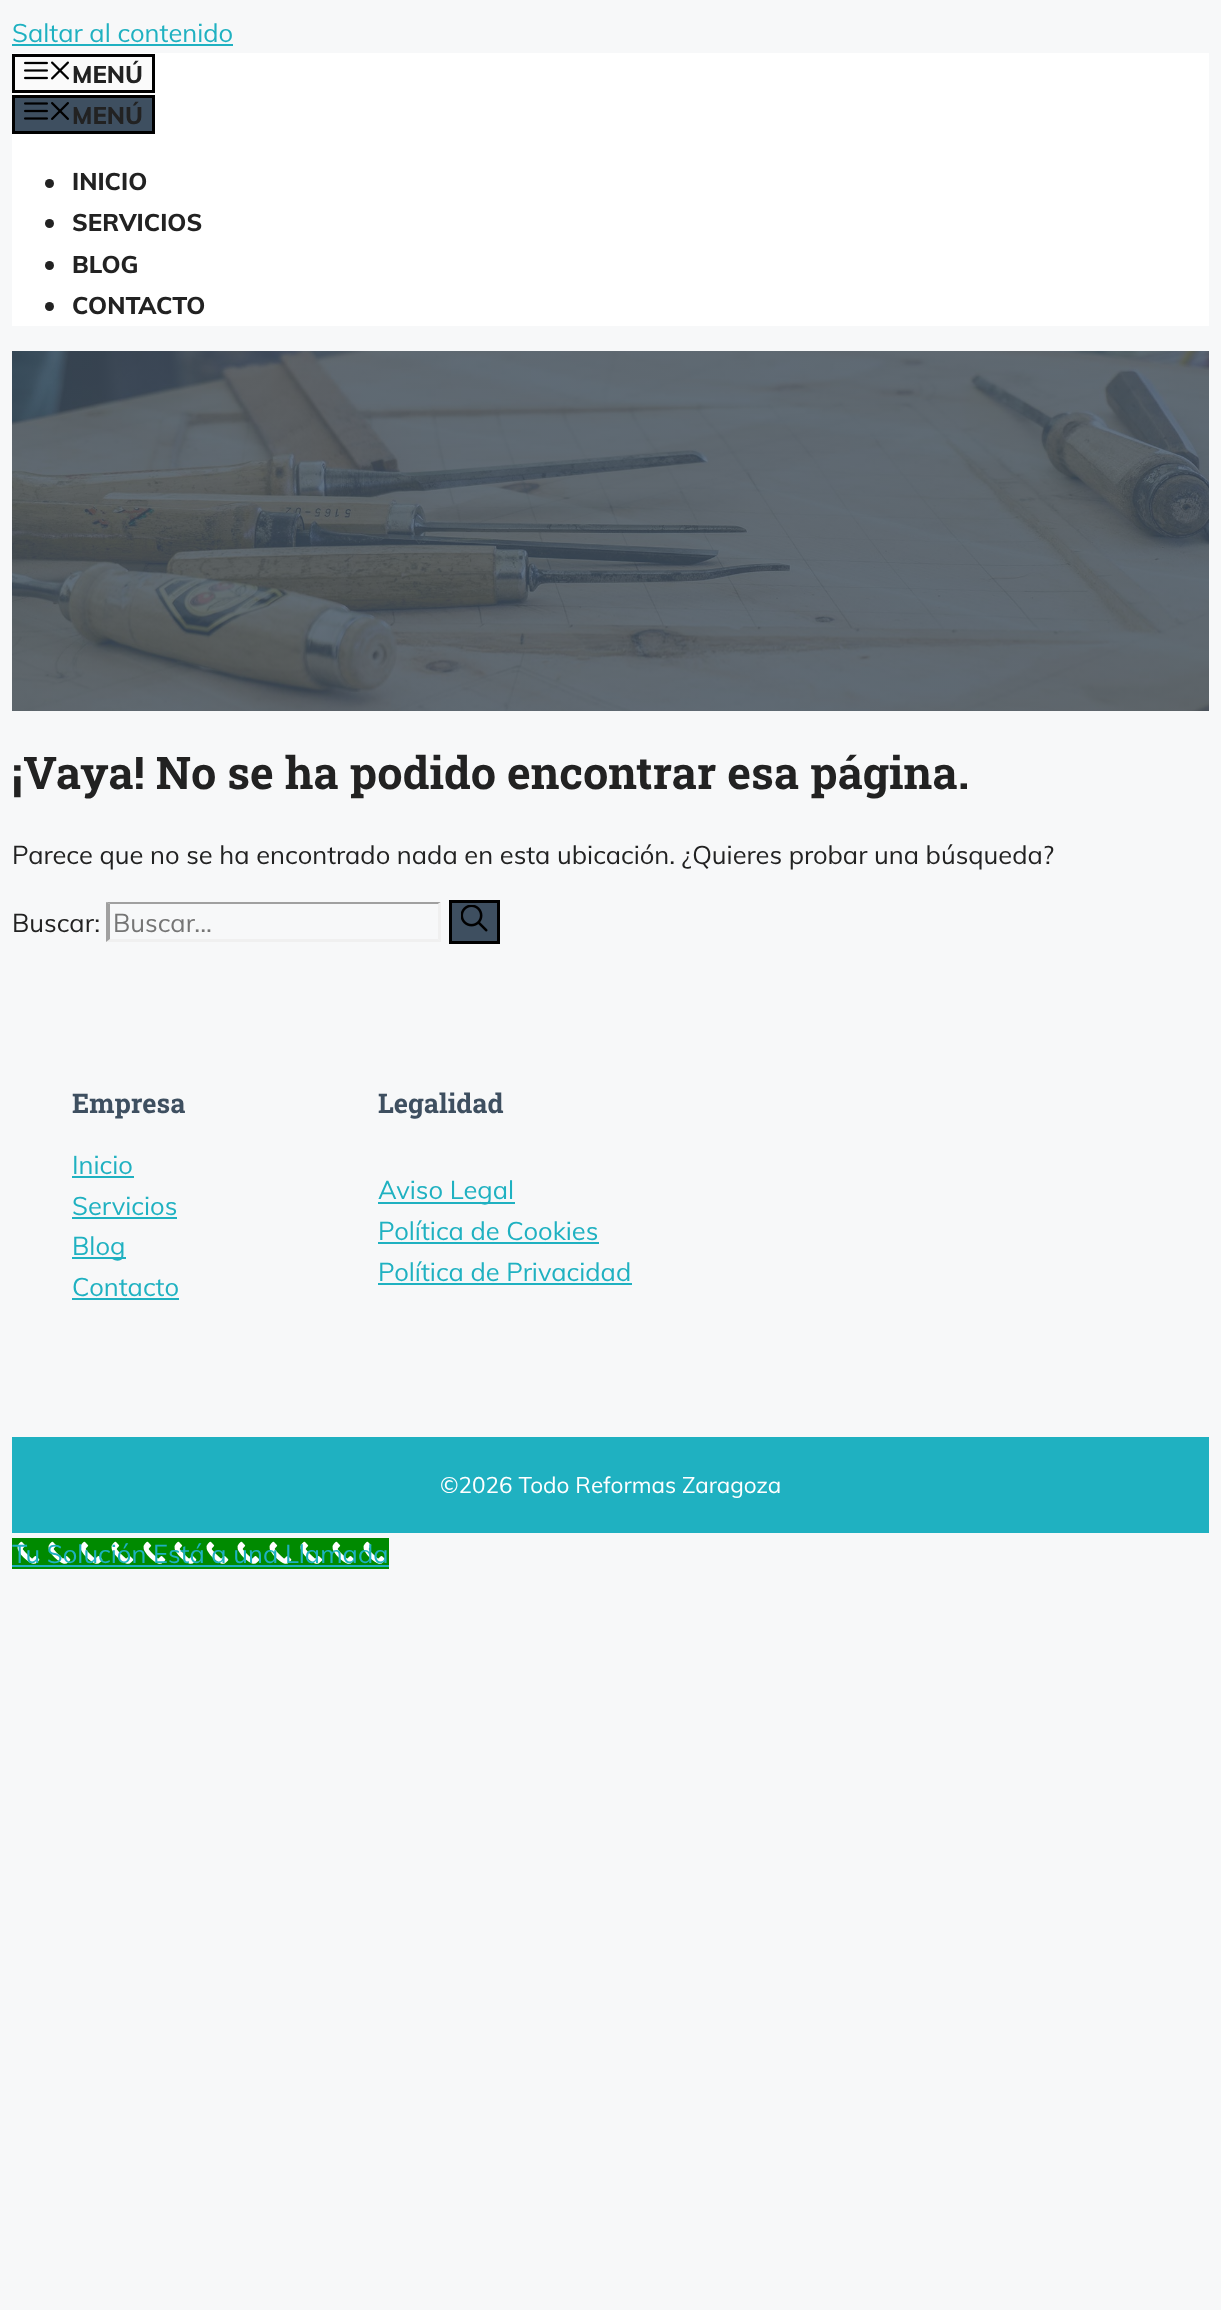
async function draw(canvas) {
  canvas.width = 1221
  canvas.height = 2310
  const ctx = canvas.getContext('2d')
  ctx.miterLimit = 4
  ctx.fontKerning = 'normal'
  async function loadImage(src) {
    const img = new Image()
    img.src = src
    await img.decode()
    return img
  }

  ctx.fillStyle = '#f7f8f9'
  ctx.fillRect(0, 0, 1221, 2310)
  ctx.font = '25.5px Muli'
  ctx.fillStyle = '#1fb1c1'
  ctx.fillText('Saltar al contenido', 12, 42)
  ctx.fillRect(12, 44, 221, 2)
  ctx.fillStyle = '#fff'
  ctx.fillRect(12, 53, 1197, 273)
  ctx.fillStyle = '#fafafa'
  ctx.beginPath()
  ctx.rect(13.5, 55.5, 140, 36)
  ctx.fill()
  ctx.strokeStyle = '#000'
  ctx.lineWidth = 3
  ctx.stroke()
  ctx.drawImage(await loadImage('image0.png'), 24, 61, 24, 19)
  ctx.drawImage(await loadImage('image1.png'), 51, 61, 18, 19)
  ctx.font = '800 24px Muli'
  ctx.fillStyle = '#222'
  ctx.fillText('MENÚ', 72, 83)
  ctx.fillStyle = '#3e4f60'
  ctx.beginPath()
  ctx.rect(13.5, 96.5, 140, 36)
  ctx.fill()
  ctx.stroke()
  ctx.drawImage(await loadImage('image2.png'), 24, 102, 24, 18)
  ctx.drawImage(await loadImage('image3.png'), 51, 102, 18, 18)
  ctx.fillStyle = '#222'
  ctx.fillText('MENÚ', 72, 124)
  ctx.beginPath()
  ctx.arc(49.5, 183.5, 4.5, 0, 2 * Math.PI)
  ctx.fill()
  ctx.fillText('INICIO', 72, 190)
  ctx.beginPath()
  ctx.arc(49.5, 223.5, 4.5, 0, 2 * Math.PI)
  ctx.fill()
  ctx.fillText('SERVICIOS', 72, 231)
  ctx.beginPath()
  ctx.arc(49.5, 265.5, 4.5, 0, 2 * Math.PI)
  ctx.fill()
  ctx.fillText('BLOG', 72, 273)
  ctx.beginPath()
  ctx.arc(49.5, 306.5, 4.5, 0, 2 * Math.PI)
  ctx.fill()
  ctx.fillText('CONTACTO', 72, 314)
  ctx.drawImage(await loadImage('image4.png'), 12, 351, 1197, 360)
  ctx.font = 'bold 45px Roboto Slab'
  ctx.fillText('¡Vaya! No se ha podido encontrar esa página.', 12, 789)
  ctx.font = '25.5px Muli'
  ctx.fillText('Parece que no se ha encontrado nada en esta ubicación. ¿Quieres probar una búsqueda?', 12, 864)
  ctx.fillText('Buscar:', 12, 932)
  ctx.fillStyle = '#a0a0a0'
  ctx.beginPath()
  ctx.moveTo(106, 902)
  ctx.lineTo(441, 902)
  ctx.lineTo(438, 904)
  ctx.lineTo(110, 904)
  ctx.closePath()
  ctx.fill()
  ctx.fillStyle = '#f0f0f0'
  ctx.beginPath()
  ctx.moveTo(441, 902)
  ctx.lineTo(441, 942)
  ctx.lineTo(438, 939)
  ctx.lineTo(438, 904)
  ctx.closePath()
  ctx.fill()
  ctx.beginPath()
  ctx.moveTo(441, 942)
  ctx.lineTo(106, 942)
  ctx.lineTo(110, 939)
  ctx.lineTo(438, 939)
  ctx.closePath()
  ctx.fill()
  ctx.fillStyle = '#a0a0a0'
  ctx.beginPath()
  ctx.moveTo(106, 942)
  ctx.lineTo(106, 902)
  ctx.lineTo(110, 904)
  ctx.lineTo(110, 939)
  ctx.closePath()
  ctx.fill()
  ctx.fillStyle = '#757575'
  ctx.fillText('Buscar...', 113, 932)
  ctx.fillStyle = '#3e4f60'
  ctx.beginPath()
  ctx.rect(450.5, 901.5, 48, 41)
  ctx.fill()
  ctx.stroke()
  ctx.drawImage(await loadImage('image5.png'), 461, 905, 27, 27)
  ctx.font = 'bold 27px Roboto Slab'
  ctx.fillText('Empresa', 72, 1113)
  ctx.font = '25.5px Muli'
  ctx.fillStyle = '#1fb1c1'
  ctx.fillText('Inicio', 72, 1174)
  ctx.fillRect(72, 1176, 62, 2)
  ctx.fillText('Servicios', 72, 1215)
  ctx.fillRect(72, 1217, 105, 2)
  ctx.fillRect(72, 1257, 54, 2)
  ctx.fillText('Blog', 72, 1255)
  ctx.fillText('Contacto', 72, 1296)
  ctx.fillRect(72, 1298, 107, 2)
  ctx.font = 'bold 27px Roboto Slab'
  ctx.fillStyle = '#3e4f60'
  ctx.fillText('Legalidad', 378, 1113)
  ctx.fillStyle = '#1fb1c1'
  ctx.fillRect(378, 1202, 137, 2)
  ctx.font = '25.5px Muli'
  ctx.fillText('Aviso Legal', 378, 1199)
  ctx.fillText('Política de Cookies', 378, 1240)
  ctx.fillRect(378, 1242, 221, 2)
  ctx.fillText('Política de Privacidad', 378, 1281)
  ctx.fillRect(378, 1283, 254, 2)
  ctx.fillRect(12, 1437, 1197, 96)
  ctx.font = '22.5px Muli'
  ctx.fillStyle = '#fff'
  ctx.fillText('©2026 Todo Reformas Zaragoza', 440, 1493)
  ctx.fillStyle = '#008a00'
  ctx.fillRect(12, 1538, 377, 31)
  ctx.drawImage(await loadImage('image6.png'), 17, 1541, 369, 23)
  ctx.font = '25.5px Muli'
  ctx.fillStyle = '#1fb1c1'
  ctx.fillText('Tu Solución Está a una Llamada', 12, 1563)
  ctx.fillRect(12, 1565, 377, 2)
}

draw(document.querySelector('canvas'))
